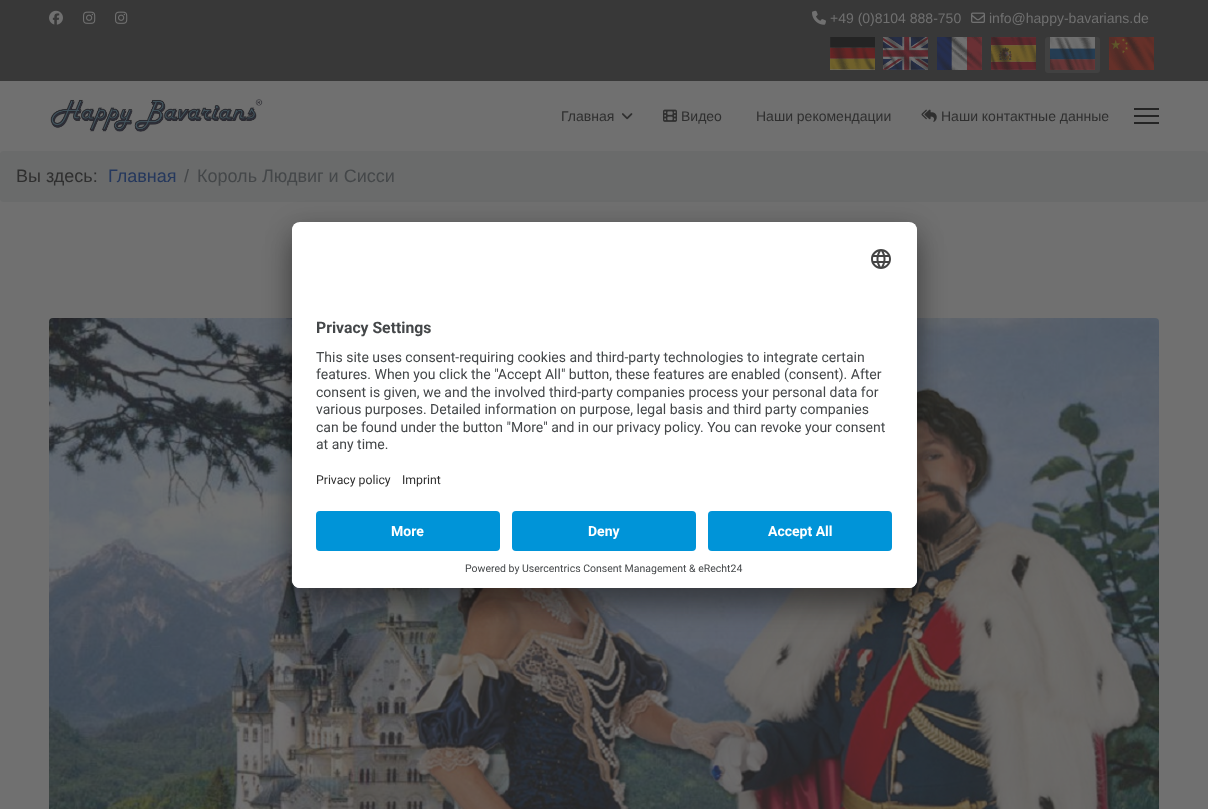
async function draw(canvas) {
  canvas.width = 1208
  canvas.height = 809
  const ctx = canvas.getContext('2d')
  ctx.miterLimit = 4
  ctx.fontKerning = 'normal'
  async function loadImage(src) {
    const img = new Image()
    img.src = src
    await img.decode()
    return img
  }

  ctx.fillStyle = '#707070'
  ctx.fillRect(0, 0, 1208, 809)
  ctx.fillStyle = '#383838'
  ctx.fillRect(0, 0, 1208, 81)
  ctx.drawImage(await loadImage('image0.png'), 49, 10, 14, 15)
  ctx.drawImage(await loadImage('image1.png'), 83, 11, 13, 13)
  ctx.drawImage(await loadImage('image1.png'), 115, 11, 13, 13)
  ctx.drawImage(await loadImage('image2.png'), 812, 10, 14, 15)
  ctx.font = '14px Liberation Sans'
  ctx.fillStyle = '#707070'
  ctx.fillText('+49 (0)8104 888-750', 830, 23)
  ctx.drawImage(await loadImage('image3.png'), 971, 12, 14, 11)
  ctx.fillText('info@happy-bavarians.de', 989, 23)
  ctx.drawImage(await loadImage('image4.png'), 830, 37, 45, 33)
  ctx.drawImage(await loadImage('image5.png'), 883, 37, 45, 33)
  ctx.drawImage(await loadImage('image6.png'), 937, 37, 45, 33)
  ctx.drawImage(await loadImage('image7.png'), 991, 37, 45, 33)
  ctx.fillStyle = '#414141'
  ctx.beginPath()
  ctx.roundRect(1045, 37, 55, 36, 3)
  ctx.fill()
  ctx.drawImage(await loadImage('image8.png'), 1050, 37, 45, 33)
  ctx.drawImage(await loadImage('image9.png'), 1109, 37, 45, 33)
  ctx.drawImage(await loadImage('image10.png'), 50, 99, 213, 33)
  ctx.fillStyle = '#2f2f2f'
  ctx.fillText('Главная', 561, 121)
  ctx.drawImage(await loadImage('image11.png'), 622, 113, 11, 7)
  ctx.drawImage(await loadImage('image12.png'), 663, 109, 14, 13)
  ctx.fillText('Видео', 681, 121)
  ctx.fillText('Наши рекомендации', 756, 121)
  ctx.drawImage(await loadImage('image13.png'), 921, 109, 16, 13)
  ctx.fillText('Наши контактные данные', 941, 121)
  ctx.fillStyle = '#242424'
  ctx.fillRect(1134, 108, 25, 2)
  ctx.fillRect(1134, 115, 25, 2)
  ctx.fillRect(1134, 122, 25, 2)
  ctx.fillStyle = '#6a6b6b'
  ctx.beginPath()
  ctx.roundRect(0, 151, 1208, 51, 4)
  ctx.fill()
  ctx.font = '18px Liberation Sans'
  ctx.fillStyle = '#2f2f2f'
  ctx.fillText('Вы здесь:', 16, 182)
  ctx.fillStyle = '#25385d'
  ctx.fillText('Главная', 108, 182)
  ctx.fillStyle = '#444749'
  ctx.fillText('/', 184, 182)
  ctx.fillText('Король Людвиг и Сисси', 197, 182)
  ctx.drawImage(await loadImage('image14.png'), 49, 318, 1110, 491)
  ctx.fillStyle = '#0000004d'
  ctx.filter = 'blur(14px)'
  ctx.beginPath()
  ctx.roundRect(292, 242, 625, 366, 8)
  ctx.fill()
  ctx.filter = 'none'
  ctx.fillStyle = '#00000038'
  ctx.filter = 'blur(13px)'
  ctx.beginPath()
  ctx.roundRect(292, 227, 625, 366, 8)
  ctx.fill()
  ctx.filter = 'none'
  ctx.fillStyle = '#fff'
  ctx.beginPath()
  ctx.roundRect(292, 222, 625, 366, 8)
  ctx.fill()
  ctx.save()
  ctx.beginPath()
  ctx.roundRect(292, 222, 625, 366, 8)
  ctx.clip()
  ctx.beginPath()
  ctx.roundRect(292, 222, 625, 281, [8, 8, 0, 0])
  ctx.clip()
  ctx.fillRect(292, 223, 625, 280)
  ctx.restore()
  ctx.drawImage(await loadImage('image15.png'), 871, 249, 20, 20)
  ctx.font = 'bold 15.75px Roboto'
  ctx.fillStyle = '#444749'
  ctx.fillText('Privacy Settings', 316, 333)
  ctx.font = '14px Roboto'
  ctx.fillText('This site uses consent-requiring cookies and third-party technologies to integrate certain', 316, 362)
  ctx.fillText('features. When you click the "Accept All" button, these features are enabled (consent). After', 316, 379)
  ctx.fillText('consent is given, we and the involved third-party companies process your personal data for', 316, 397)
  ctx.fillText('various purposes. Detailed information on purpose, legal basis and third party companies', 316, 414)
  ctx.fillText('can be found under the button "More" and in our privacy policy. You can revoke your consent', 316, 432)
  ctx.fillText('at any time.', 316, 449)
  ctx.font = '12.25px Roboto'
  ctx.fillStyle = '#2f2f2f'
  ctx.fillText('Privacy policy', 316, 484)
  ctx.fillText('Imprint', 402, 484)
  ctx.fillStyle = '#fff'
  ctx.beginPath()
  ctx.roundRect(292, 503, 625, 85, [0, 0, 8, 8])
  ctx.fill()
  ctx.fillStyle = '#0094d8'
  ctx.beginPath()
  ctx.roundRect(316, 511, 184, 40, 4)
  ctx.fill()
  ctx.font = 'bold 14px Roboto'
  ctx.fillStyle = '#fff'
  ctx.fillText('More', 391, 536)
  ctx.fillStyle = '#0094d8'
  ctx.beginPath()
  ctx.roundRect(512, 511, 184, 40, 4)
  ctx.fill()
  ctx.fillStyle = '#fff'
  ctx.fillText('Deny', 588, 536)
  ctx.fillStyle = '#0094d8'
  ctx.beginPath()
  ctx.roundRect(708, 511, 184, 40, 4)
  ctx.fill()
  ctx.fillStyle = '#fff'
  ctx.fillText('Accept All', 768, 536)
  ctx.font = '10.5px Roboto'
  ctx.fillStyle = '#444749'
  ctx.fillText('Powered by Usercentrics Consent Management & eRecht24', 465, 572)
}

draw(document.querySelector('canvas'))
